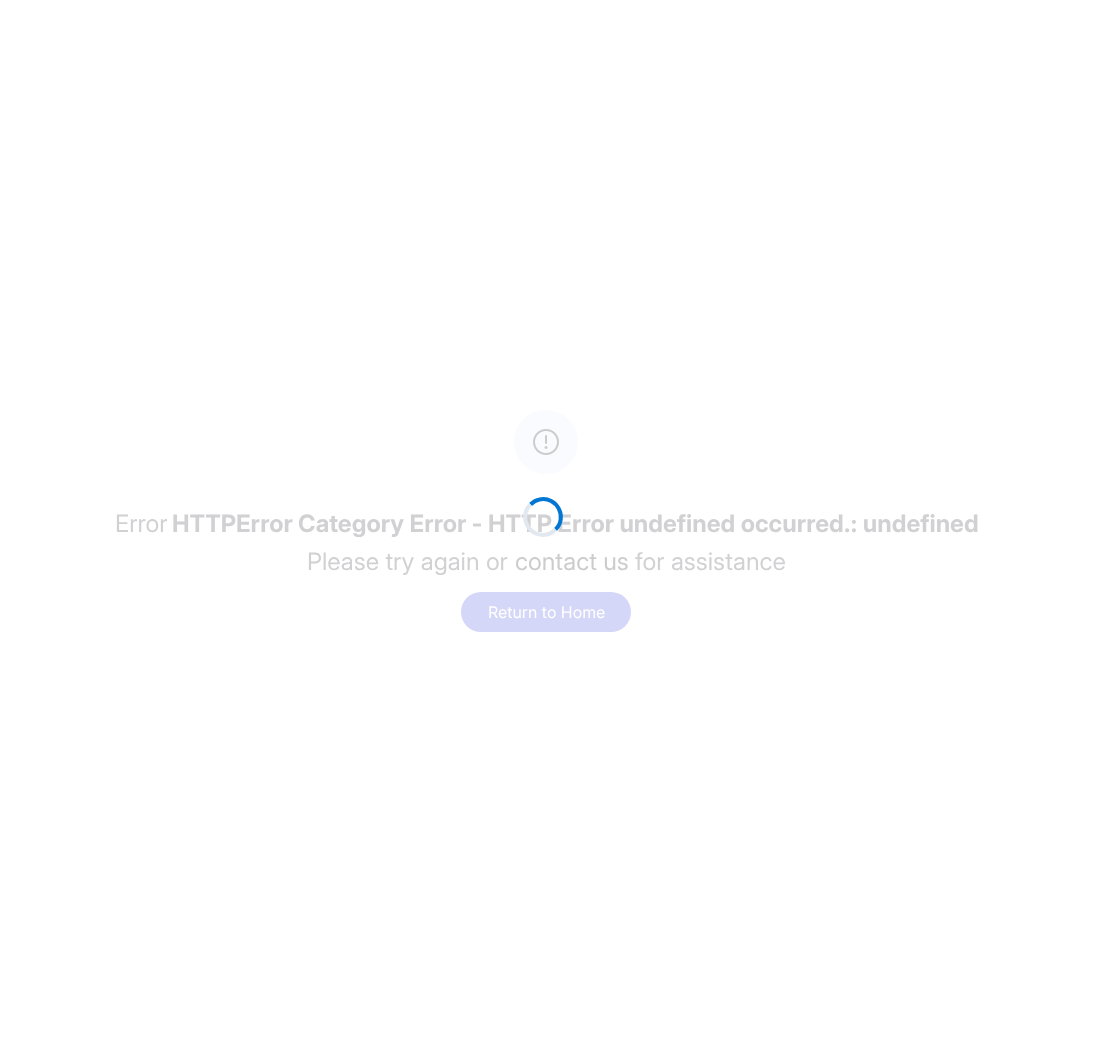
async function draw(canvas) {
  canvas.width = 1093
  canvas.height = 1042
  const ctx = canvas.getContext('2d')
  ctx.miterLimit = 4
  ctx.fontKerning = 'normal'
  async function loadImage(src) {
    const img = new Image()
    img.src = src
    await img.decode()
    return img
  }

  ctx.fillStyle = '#fff'
  ctx.fillRect(0, 0, 1093, 1042)
  ctx.font = 'bold 24px Inter'
  ctx.fillStyle = '#d1d1d3'
  ctx.fillText('HTTPError Category Error - HTTP Error undefined occurred.: undefined', 172, 532)
  ctx.beginPath()
  ctx.moveTo(530.5, 504.5)
  ctx.bezierCurveTo(533, 502, 536, 500, 539.5, 499.5)
  ctx.bezierCurveTo(557, 496, 568, 517.5, 555.5, 529.5)
  ctx.strokeStyle = '#0176d3'
  ctx.lineWidth = 4
  ctx.stroke()
  ctx.beginPath()
  ctx.moveTo(555.5, 529.5)
  ctx.bezierCurveTo(553, 532, 550, 534, 546.5, 534.5)
  ctx.bezierCurveTo(529, 538, 518, 516.5, 530.5, 504.5)
  ctx.strokeStyle = '#e2e8f0'
  ctx.stroke()
  ctx.drawImage(await loadImage('image0.png'), 514, 410, 64, 64)
  ctx.font = '24px Inter'
  ctx.fillText('Error', 115, 532)
  ctx.fillText('Please try again or', 307, 570)
  ctx.fillStyle = '#ccc'
  ctx.fillText('contact us', 515, 570)
  ctx.fillStyle = '#d1d1d3'
  ctx.fillText('for assistance', 635, 570)
  ctx.fillStyle = '#d4d7f7'
  ctx.beginPath()
  ctx.roundRect(461, 592, 170, 40, 20)
  ctx.fill()
  ctx.font = '16px "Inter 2"'
  ctx.fillStyle = '#fff'
  ctx.fillText('Return to Home', 488, 618)
}

draw(document.querySelector('canvas'))
